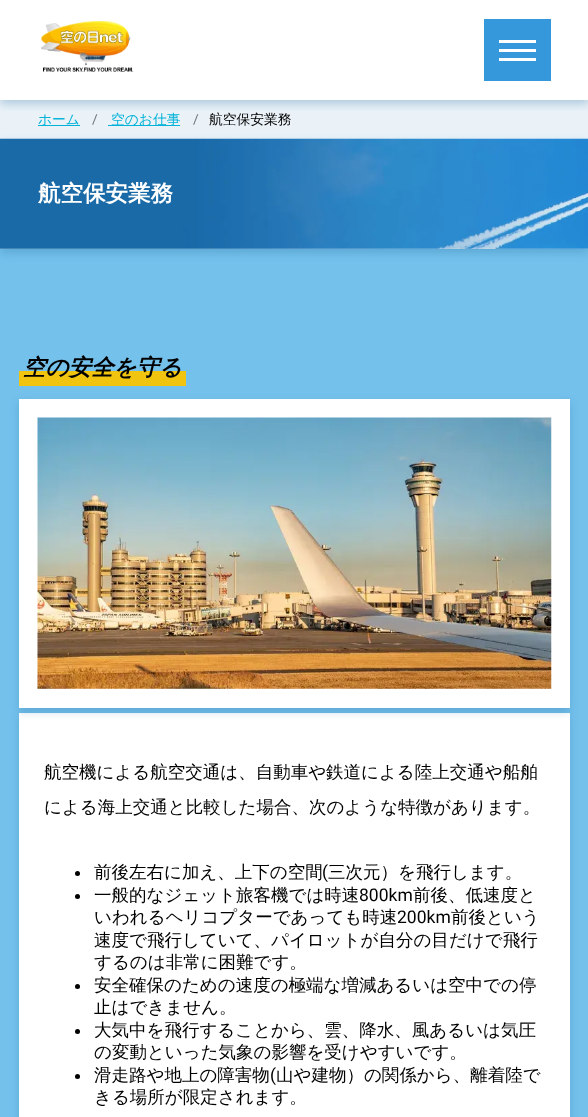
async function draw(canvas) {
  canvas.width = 588
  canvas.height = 1117
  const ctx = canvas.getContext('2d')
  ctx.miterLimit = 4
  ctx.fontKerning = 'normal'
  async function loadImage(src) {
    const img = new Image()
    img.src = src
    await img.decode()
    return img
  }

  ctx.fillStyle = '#fff'
  ctx.fillRect(0, 0, 588, 1117)
  ctx.fillStyle = '#eaf2f8'
  ctx.fillRect(0, 100, 588, 39)
  ctx.save()
  ctx.beginPath()
  ctx.rect(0, 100, 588, 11)
  ctx.clip()
  ctx.fillStyle = '#2471a34d'
  ctx.filter = 'blur(5px)'
  ctx.beginPath()
  ctx.rect(0, 4, 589, 100)
  ctx.fill()
  ctx.filter = 'none'
  ctx.restore()
  ctx.drawImage(await loadImage('image0.png'), 41, 21, 93, 51)
  ctx.fillStyle = '#3498db'
  ctx.fillRect(484, 19, 67, 62)
  ctx.fillStyle = '#fff'
  ctx.fillRect(499, 40, 37, 3)
  ctx.fillRect(499, 49, 37, 3)
  ctx.fillRect(499, 58, 37, 3)
  ctx.fillStyle = '#00b2d7'
  ctx.fillRect(38, 125, 42, 1)
  ctx.font = '500 13.75px WenQuanYi Zen Hei'
  ctx.fillText('ホーム', 38, 124)
  ctx.font = '13.75px Roboto'
  ctx.fillStyle = '#6c757d'
  ctx.fillText('/', 92, 124)
  ctx.fillStyle = '#00b2d7'
  ctx.fillRect(108, 125, 72, 1)
  ctx.font = '500 13.75px WenQuanYi Zen Hei'
  ctx.fillText('空のお仕事', 111, 124)
  ctx.font = '13.75px Roboto'
  ctx.fillStyle = '#6c757d'
  ctx.fillText('/', 193, 124)
  ctx.font = '500 13.75px WenQuanYi Zen Hei'
  ctx.fillStyle = '#000'
  ctx.fillText('航空保安業務', 209, 124)
  ctx.fillStyle = '#74c1ec'
  ctx.fillRect(0, 249, 588, 868)
  ctx.fillStyle = '#2471a34d'
  ctx.filter = 'blur(5px)'
  ctx.beginPath()
  ctx.rect(0, 143, 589, 110)
  ctx.fill()
  ctx.filter = 'none'
  ctx.drawImage(await loadImage('image1.png'), 0, 138, 588, 111)
  ctx.font = 'bold 22.5px WenQuanYi Zen Hei'
  ctx.fillStyle = '#fff'
  ctx.fillText('航空保安業務', 38, 201)
  ctx.fillStyle = '#f1c40f'
  ctx.fillRect(19, 371, 167, 15)
  ctx.font = 'italic bold 22.5px WenQuanYi Zen Hei'
  ctx.fillStyle = '#000'
  ctx.fillText('空の安全を守る', 23, 375)
  ctx.fillStyle = '#2471a34d'
  ctx.filter = 'blur(5px)'
  ctx.beginPath()
  ctx.rect(19, 716, 551, 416)
  ctx.fill()
  ctx.filter = 'none'
  ctx.fillStyle = '#fff'
  ctx.fillRect(19, 713, 551, 404)
  ctx.fillStyle = '#2471a34d'
  ctx.filter = 'blur(5px)'
  ctx.beginPath()
  ctx.rect(19, 403, 551, 308)
  ctx.fill()
  ctx.filter = 'none'
  ctx.fillStyle = '#fff'
  ctx.fillRect(19, 399, 551, 309)
  ctx.drawImage(await loadImage('image2.png'), 37, 417, 515, 272)
  ctx.font = '500 17.5px WenQuanYi Zen Hei'
  ctx.fillStyle = '#000'
  ctx.fillText('航空機による航空交通は、自動車や鉄道による陸上交通や船舶', 44, 778)
  ctx.fillText('による海上交通と比較した場合、次のような特徴があります。', 44, 813)
  ctx.beginPath()
  ctx.arc(77.5, 873.5, 2.5, 0, 2 * Math.PI)
  ctx.fill()
  ctx.fillText('前後左右に加え、上下の空間', 94, 878)
  ctx.font = '17.5px Roboto'
  ctx.fillText('(', 322, 878)
  ctx.font = '500 17.5px WenQuanYi Zen Hei'
  ctx.fillText('三次元）を飛行します。', 328, 878)
  ctx.beginPath()
  ctx.arc(77.5, 896.5, 2.5, 0, 2 * Math.PI)
  ctx.fill()
  ctx.fillText('一般的なジェット旅客機では時速', 94, 901)
  ctx.font = '17.5px Roboto'
  ctx.fillText('800km', 359, 901)
  ctx.font = '500 17.5px WenQuanYi Zen Hei'
  ctx.fillText('前後、低速度と', 413, 901)
  ctx.fillText('いわれるヘリコプターであっても時速', 94, 923)
  ctx.font = '17.5px Roboto'
  ctx.fillText('200km', 397, 923)
  ctx.font = '500 17.5px WenQuanYi Zen Hei'
  ctx.fillText('前後という', 451, 923)
  ctx.fillText('速度で飛行していて、パイロットが自分の目だけで飛行', 94, 946)
  ctx.fillText('するのは非常に困難です。', 94, 968)
  ctx.beginPath()
  ctx.arc(77.5, 986.5, 2.5, 0, 2 * Math.PI)
  ctx.fill()
  ctx.fillText('安全確保のための速度の極端な増減あるいは空中での停', 94, 991)
  ctx.fillText('止はできません。', 94, 1013)
  ctx.beginPath()
  ctx.arc(77.5, 1031.5, 2.5, 0, 2 * Math.PI)
  ctx.fill()
  ctx.fillText('大気中を飛行することから、雲、降水、風あるいは気圧', 94, 1036)
  ctx.fillText('の変動といった気象の影響を受けやすいです。', 94, 1058)
  ctx.beginPath()
  ctx.arc(77.5, 1076.5, 2.5, 0, 2 * Math.PI)
  ctx.fill()
  ctx.fillText('滑走路や地上の障害物', 94, 1081)
  ctx.font = '17.5px Roboto'
  ctx.fillText('(', 270, 1081)
  ctx.font = '500 17.5px WenQuanYi Zen Hei'
  ctx.fillText('山や建物）の関係から、離着陸で', 276, 1081)
  ctx.fillText('きる場所が限定されます。', 94, 1103)
}

draw(document.querySelector('canvas'))
